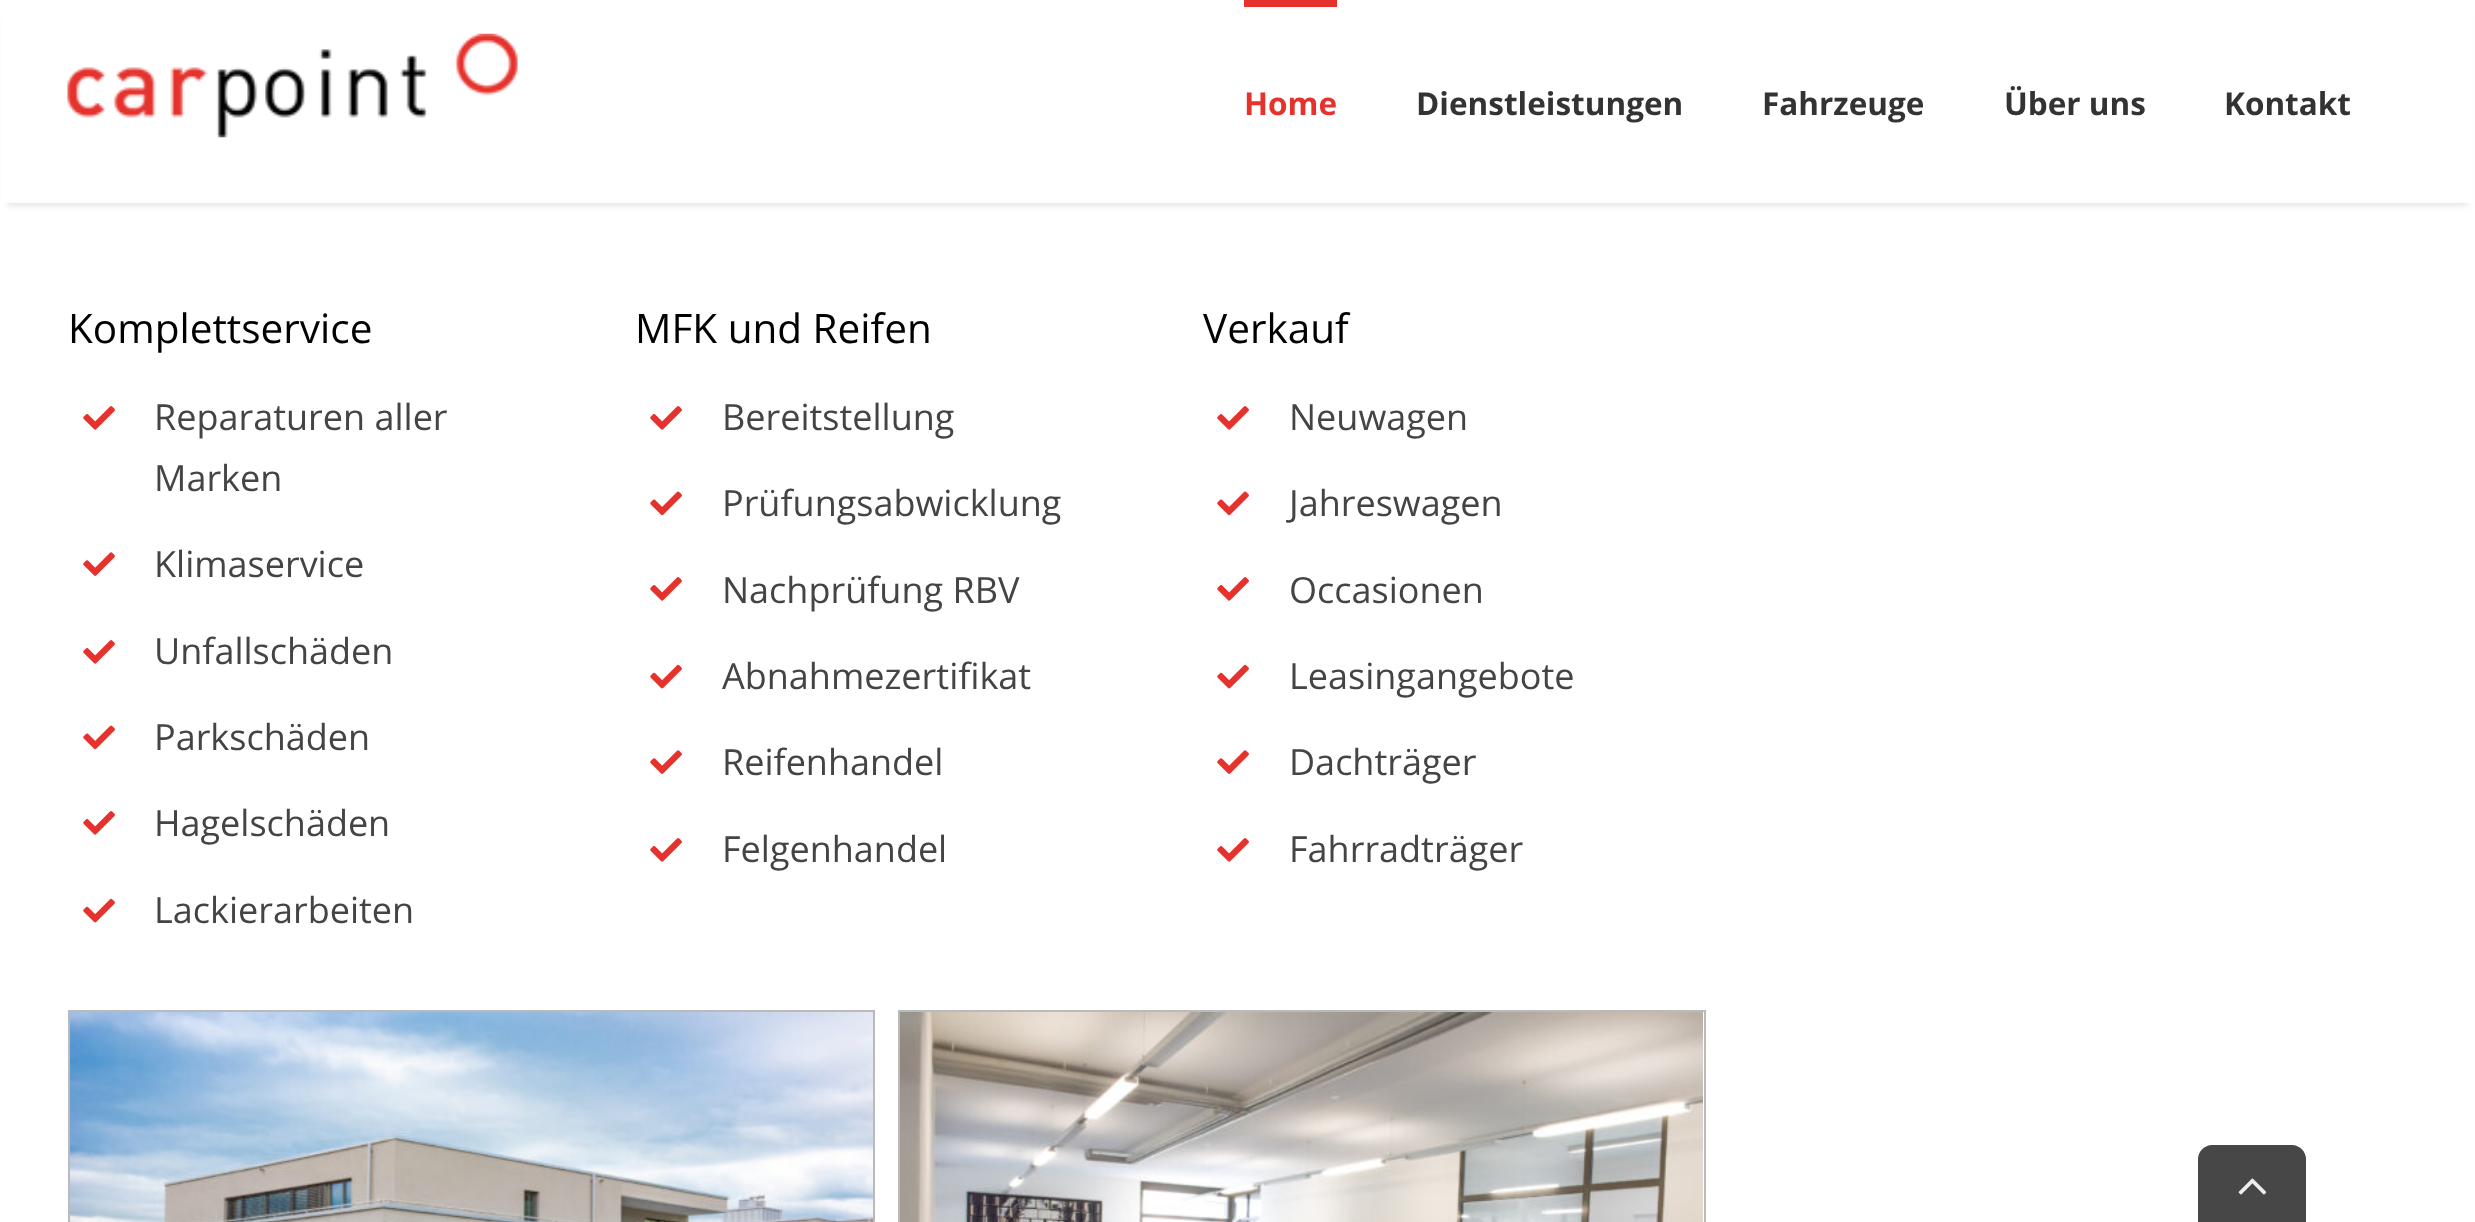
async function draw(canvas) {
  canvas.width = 2475
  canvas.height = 1222
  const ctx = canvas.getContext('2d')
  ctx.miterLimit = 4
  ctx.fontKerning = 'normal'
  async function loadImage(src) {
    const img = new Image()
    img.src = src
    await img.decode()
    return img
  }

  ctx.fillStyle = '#fff'
  ctx.fillRect(0, 0, 2475, 1222)
  ctx.fillStyle = '#0000001f'
  ctx.filter = 'blur(3.5px)'
  ctx.beginPath()
  ctx.rect(7, 16, 2461, 189)
  ctx.fill()
  ctx.filter = 'none'
  ctx.fillStyle = '#fff'
  ctx.fillRect(2, 11, 2471, 192)
  ctx.drawImage(await loadImage('image0.png'), 67, 33, 451, 105)
  ctx.fillStyle = '#e5322c'
  ctx.fillRect(1244, 0, 93, 7)
  ctx.font = 'bold 31.5px Open Sans'
  ctx.fillText('Home', 1244, 115)
  ctx.fillStyle = '#333'
  ctx.fillText('Dienstleistungen', 1416, 115)
  ctx.fillText('Fahrzeuge', 1762, 115)
  ctx.fillText('Über uns', 2004, 115)
  ctx.fillText('Kontakt', 2224, 115)
  ctx.font = '40.5px Open Sans'
  ctx.fillStyle = '#000'
  ctx.fillText('Komplettservice', 68, 343)
  ctx.drawImage(await loadImage('image1.png'), 83, 406, 32, 24)
  ctx.font = '36px Open Sans'
  ctx.fillStyle = '#444'
  ctx.fillText('Reparaturen aller', 154, 430)
  ctx.fillText('Marken', 154, 491)
  ctx.drawImage(await loadImage('image2.png'), 83, 552, 32, 24)
  ctx.fillText('Klimaservice', 154, 577)
  ctx.drawImage(await loadImage('image1.png'), 83, 640, 32, 24)
  ctx.fillText('Unfallschäden', 154, 664)
  ctx.drawImage(await loadImage('image3.png'), 83, 725, 32, 25)
  ctx.fillText('Parkschäden', 154, 750)
  ctx.drawImage(await loadImage('image1.png'), 83, 811, 32, 24)
  ctx.fillText('Hagelschäden', 154, 836)
  ctx.drawImage(await loadImage('image4.png'), 83, 898, 32, 25)
  ctx.fillText('Lackierarbeiten', 154, 923)
  ctx.font = '40.5px Open Sans'
  ctx.fillStyle = '#000'
  ctx.fillText('MFK und Reifen', 635, 343)
  ctx.drawImage(await loadImage('image1.png'), 650, 406, 32, 24)
  ctx.font = '36px Open Sans'
  ctx.fillStyle = '#444'
  ctx.fillText('Bereitstellung', 722, 430)
  ctx.drawImage(await loadImage('image3.png'), 650, 491, 32, 25)
  ctx.fillText('Prüfungsabwicklung', 722, 516)
  ctx.drawImage(await loadImage('image1.png'), 650, 577, 32, 24)
  ctx.fillText('Nachprüfung RBV', 722, 603)
  ctx.drawImage(await loadImage('image4.png'), 650, 664, 32, 25)
  ctx.fillText('Abnahmezertifikat', 722, 689)
  ctx.drawImage(await loadImage('image2.png'), 650, 750, 32, 24)
  ctx.fillText('Reifenhandel', 722, 775)
  ctx.drawImage(await loadImage('image1.png'), 650, 838, 32, 24)
  ctx.fillText('Felgenhandel', 722, 862)
  ctx.font = '40.5px Open Sans'
  ctx.fillStyle = '#000'
  ctx.fillText('Verkauf', 1203, 343)
  ctx.drawImage(await loadImage('image1.png'), 1217, 406, 32, 24)
  ctx.font = '36px Open Sans'
  ctx.fillStyle = '#444'
  ctx.fillText('Neuwagen', 1289, 430)
  ctx.drawImage(await loadImage('image3.png'), 1217, 491, 32, 25)
  ctx.fillText('Jahreswagen', 1289, 516)
  ctx.drawImage(await loadImage('image1.png'), 1217, 577, 32, 24)
  ctx.fillText('Occasionen', 1289, 603)
  ctx.drawImage(await loadImage('image4.png'), 1217, 664, 32, 25)
  ctx.fillText('Leasingangebote', 1289, 689)
  ctx.drawImage(await loadImage('image2.png'), 1217, 750, 32, 24)
  ctx.fillText('Dachträger', 1289, 775)
  ctx.drawImage(await loadImage('image1.png'), 1217, 838, 32, 24)
  ctx.fillText('Fahrradträger', 1289, 862)
  ctx.strokeStyle = '#bababa'
  ctx.lineWidth = 2
  ctx.strokeRect(69, 1011, 805, 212)
  ctx.drawImage(await loadImage('image5.png'), 70, 1012, 803, 210)
  ctx.strokeRect(899, 1011, 806, 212)
  ctx.drawImage(await loadImage('image6.png'), 900, 1012, 803, 210)
  ctx.fillStyle = '#474747'
  ctx.beginPath()
  ctx.moveTo(2212, 1145)
  ctx.lineTo(2292, 1145)
  ctx.bezierCurveTo(2299.5, 1145, 2306, 1151.5, 2306, 1159)
  ctx.lineTo(2306, 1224)
  ctx.lineTo(2198, 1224)
  ctx.lineTo(2198, 1159)
  ctx.bezierCurveTo(2198, 1151.5, 2204.5, 1145, 2212, 1145)
  ctx.closePath()
  ctx.fill()
  ctx.drawImage(await loadImage('image7.png'), 2238, 1178, 29, 17)
}

draw(document.querySelector('canvas'))
